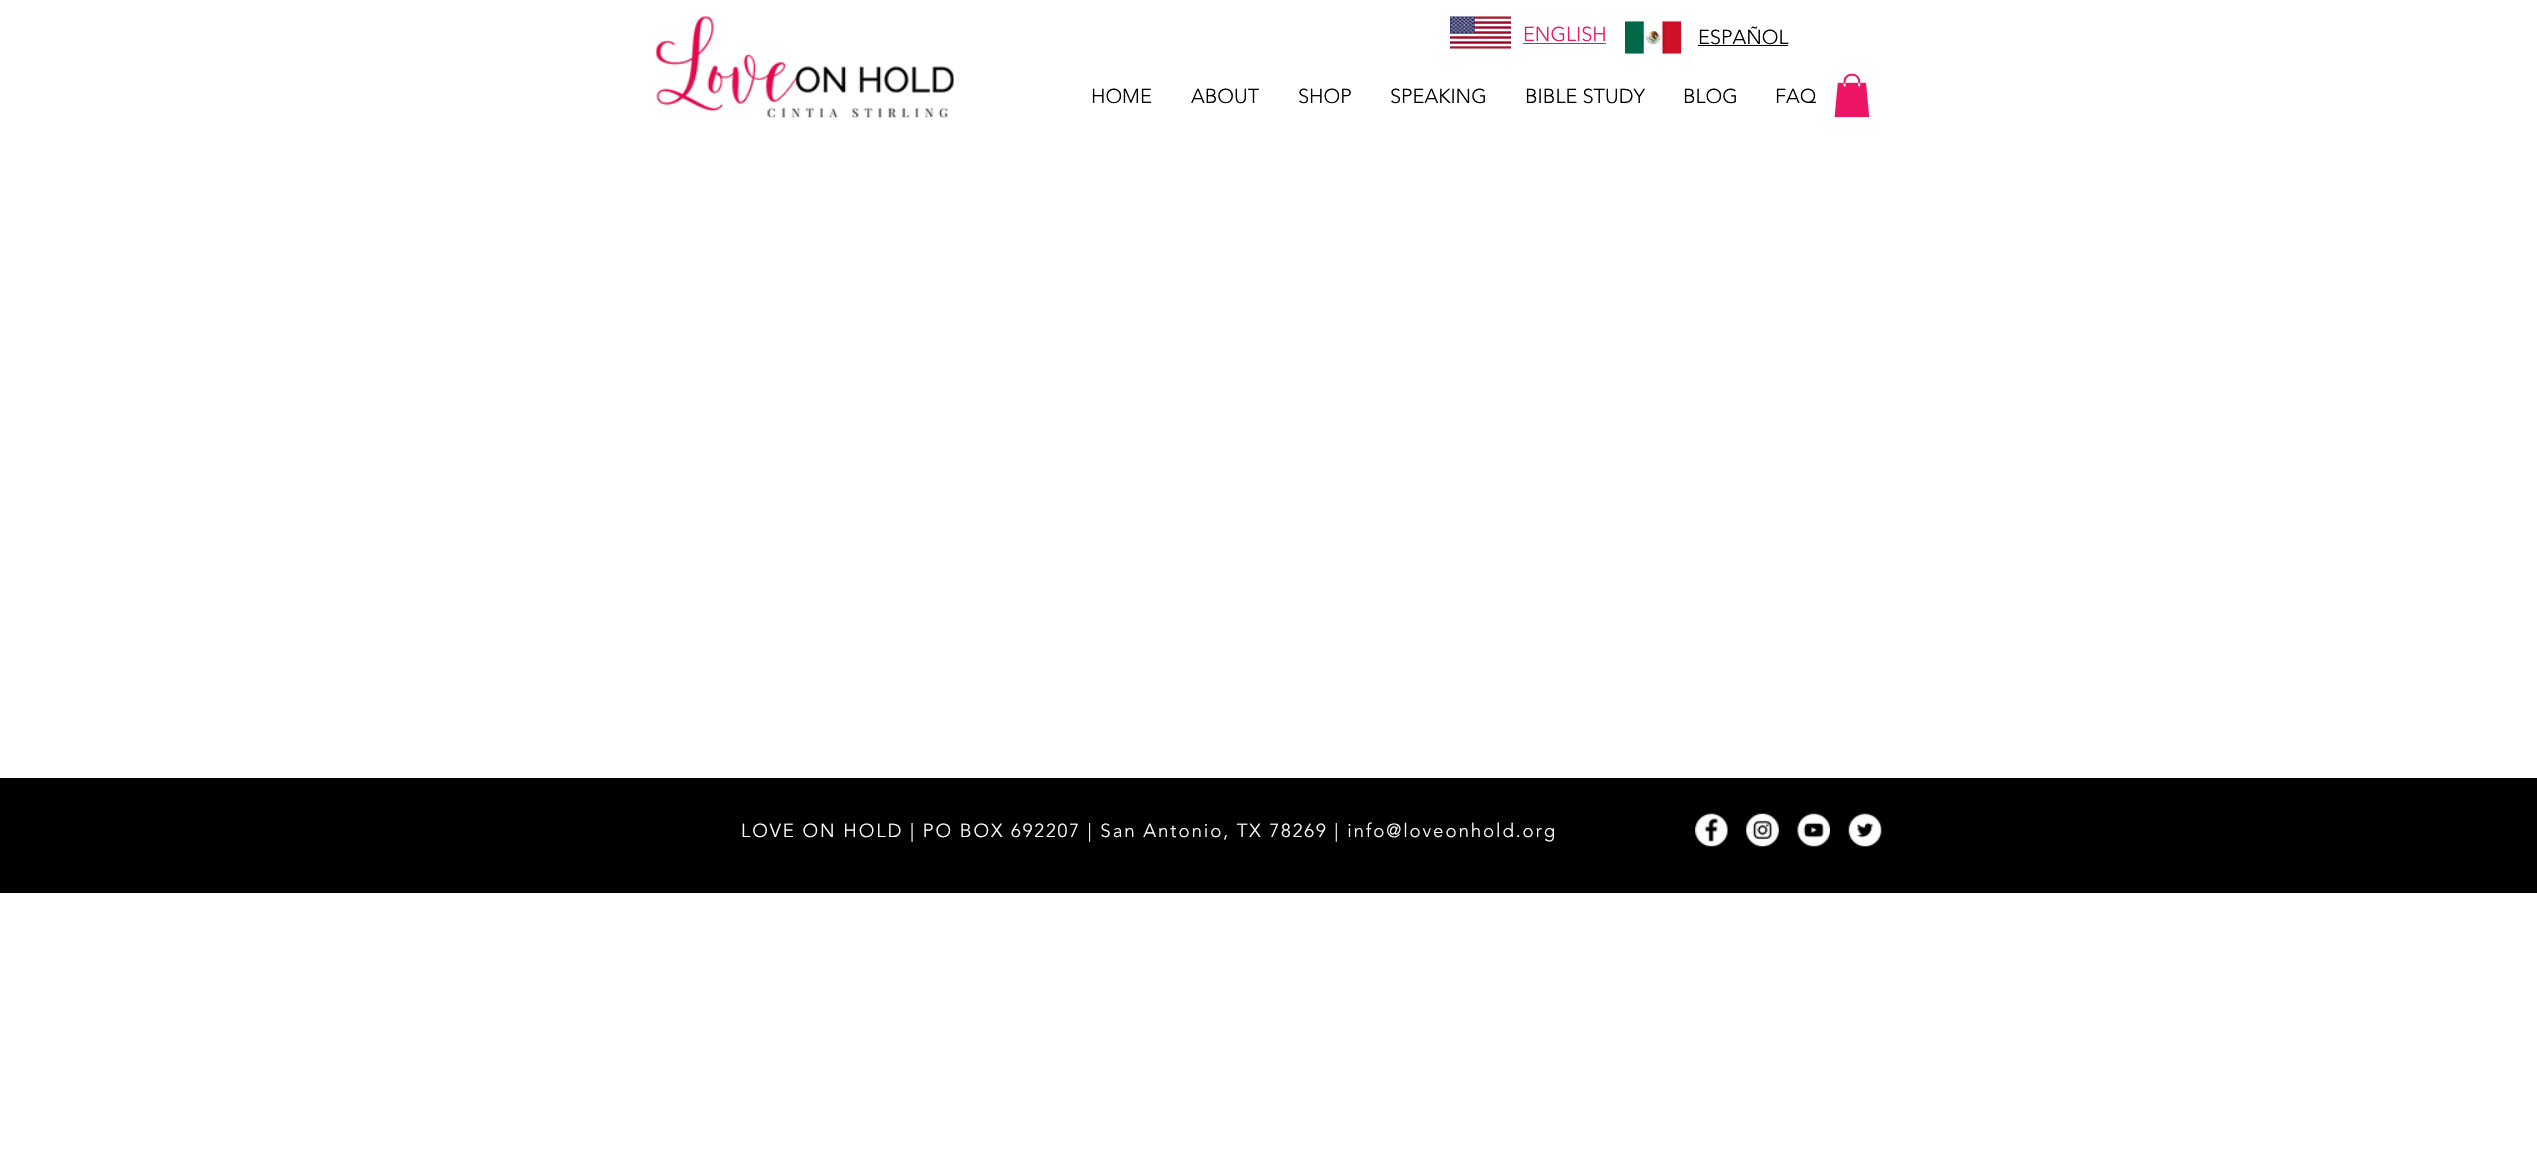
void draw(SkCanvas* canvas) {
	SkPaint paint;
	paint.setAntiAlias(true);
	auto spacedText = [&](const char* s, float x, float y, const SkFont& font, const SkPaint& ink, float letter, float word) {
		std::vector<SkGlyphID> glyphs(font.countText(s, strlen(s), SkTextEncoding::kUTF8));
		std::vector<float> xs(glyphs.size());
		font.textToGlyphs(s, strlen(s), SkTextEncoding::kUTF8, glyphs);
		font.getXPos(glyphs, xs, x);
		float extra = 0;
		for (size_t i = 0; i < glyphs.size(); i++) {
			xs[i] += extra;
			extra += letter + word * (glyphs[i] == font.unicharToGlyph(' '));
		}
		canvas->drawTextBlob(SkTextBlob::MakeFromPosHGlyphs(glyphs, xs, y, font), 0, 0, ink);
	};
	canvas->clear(0xffffffff);
	canvas->drawImageRect(SkImages::DeferredFromEncodedData(SkData::MakeFromFileName("img1.png")), SkRect::MakeXYWH(656, 16, 298, 102), SkSamplingOptions());
	canvas->drawImageRect(SkImages::DeferredFromEncodedData(SkData::MakeFromFileName("img2.png")), SkRect::MakeXYWH(1450, 16, 62, 33), SkSamplingOptions());
	SkFont f1(fontMgr->matchFamilyStyle("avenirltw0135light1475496", SkFontStyle(300, SkFontStyle::kNormal_Width, SkFontStyle::kUpright_Slant)), 20);
	f1.setSubpixel(true);
	paint.setColor(0xffed1566);
	canvas->drawString("ENGLISH", 1523, 41, f1, paint);
	canvas->drawRect(SkRect::MakeXYWH(1523, 43, 83, 1), paint);
	canvas->drawImageRect(SkImages::DeferredFromEncodedData(SkData::MakeFromFileName("img3.png")), SkRect::MakeXYWH(1625, 21, 57, 33), SkSamplingOptions());
	paint.setColor(0xff000000);
	canvas->drawString("ESPAÑOL", 1698, 44, f1, paint);
	canvas->drawRect(SkRect::MakeXYWH(1698, 45, 90, 1), paint);
	canvas->drawString("HOME", 1091, 103, f1, paint);
	canvas->drawString("ABOUT", 1191, 103, f1, paint);
	canvas->drawString("SHOP", 1298, 103, f1, paint);
	canvas->drawString("SPEAKING", 1390, 103, f1, paint);
	canvas->drawString("BIBLE STUDY", 1525, 103, f1, paint);
	canvas->drawString("BLOG", 1683, 103, f1, paint);
	canvas->drawString("FAQ", 1775, 103, f1, paint);
	canvas->drawImageRect(SkImages::DeferredFromEncodedData(SkData::MakeFromFileName("img4.png")), SkRect::MakeXYWH(1834, 73, 36, 45), SkSamplingOptions());
	canvas->drawRect(SkRect::MakeXYWH(0, 778, 2537, 115), paint);
	SkFont f2(fontMgr->matchFamilyStyle("avenirltw0135light1475496", SkFontStyle(300, SkFontStyle::kNormal_Width, SkFontStyle::kUpright_Slant)), 18.75);
	f2.setSubpixel(true);
	paint.setColor(0xffffffff);
	spacedText("LOVE ON HOLD | PO BOX 692207 | San Antonio, TX 78269 | info@loveonhold.org", 741, 837, f2, paint, 1.88, 0);
	canvas->drawImageRect(SkImages::DeferredFromEncodedData(SkData::MakeFromFileName("img5.png")), SkRect::MakeXYWH(1695, 813, 33, 34), SkSamplingOptions());
	canvas->drawImageRect(SkImages::DeferredFromEncodedData(SkData::MakeFromFileName("img6.png")), SkRect::MakeXYWH(1746, 813, 33, 34), SkSamplingOptions());
	canvas->drawImageRect(SkImages::DeferredFromEncodedData(SkData::MakeFromFileName("img7.png")), SkRect::MakeXYWH(1797, 813, 33, 34), SkSamplingOptions());
	canvas->drawImageRect(SkImages::DeferredFromEncodedData(SkData::MakeFromFileName("img8.png")), SkRect::MakeXYWH(1848, 813, 34, 34), SkSamplingOptions());
}
